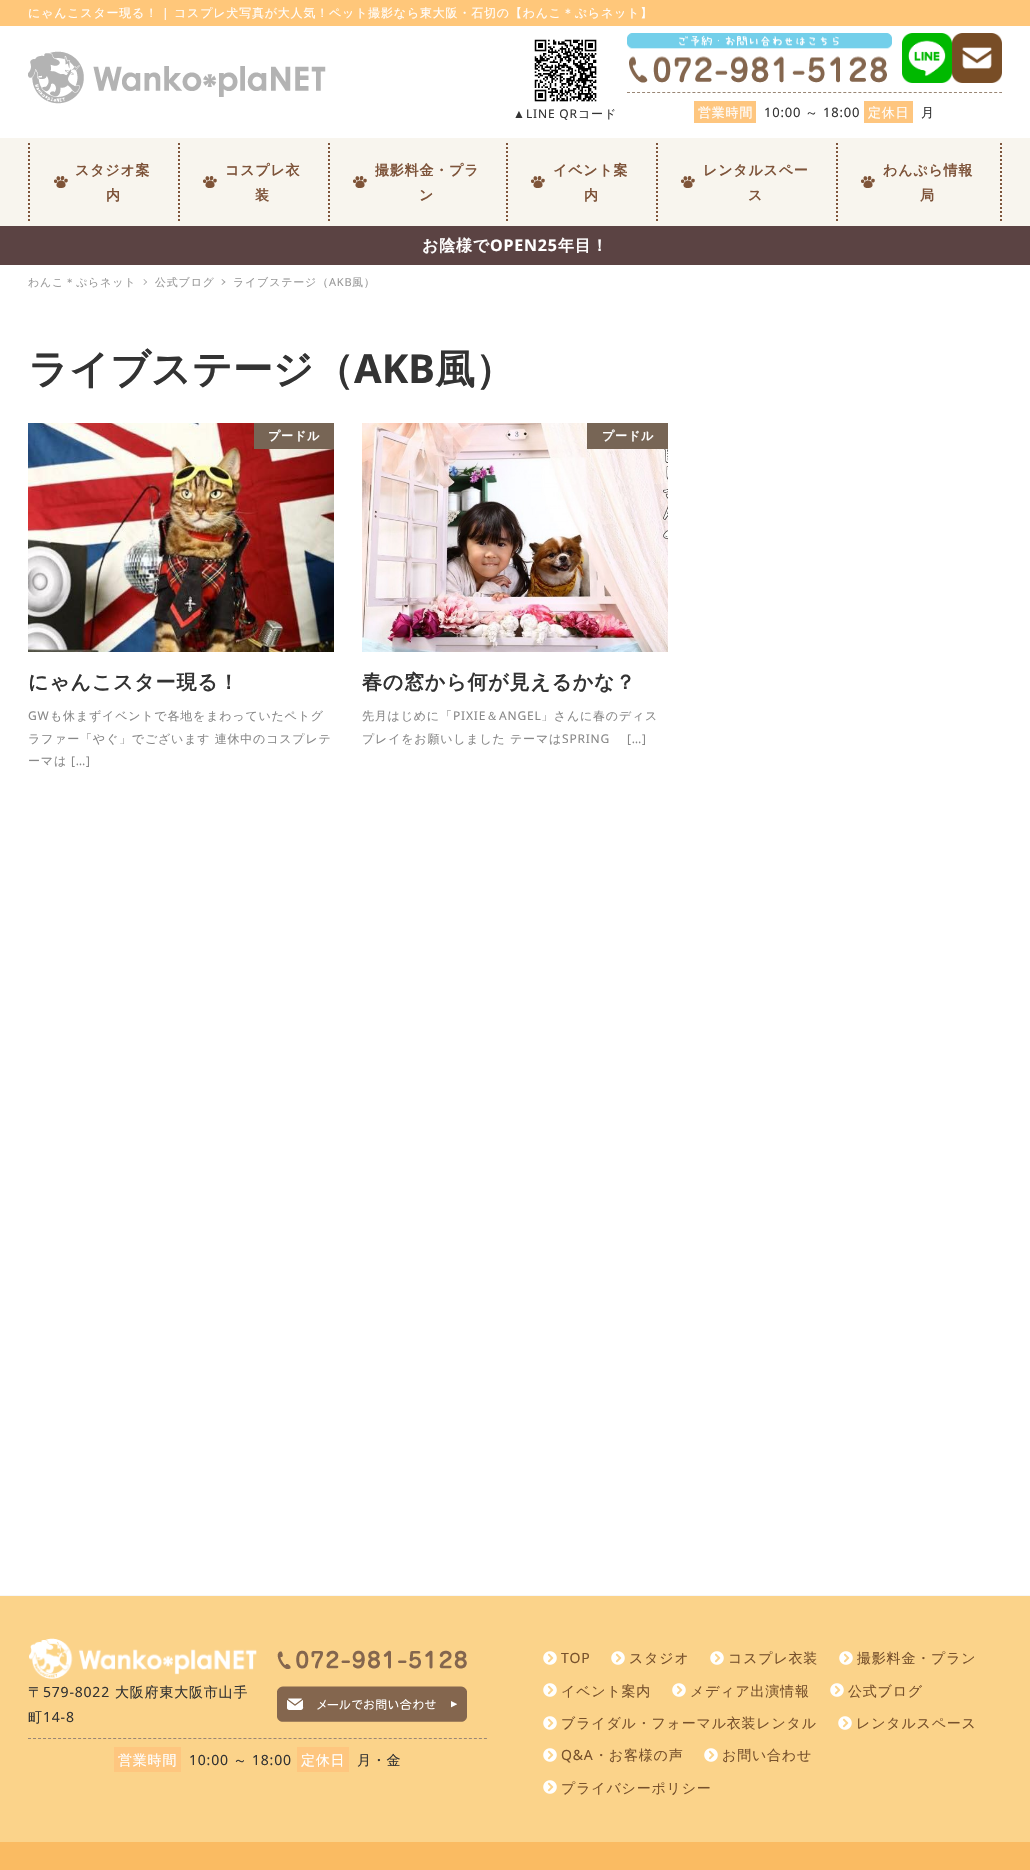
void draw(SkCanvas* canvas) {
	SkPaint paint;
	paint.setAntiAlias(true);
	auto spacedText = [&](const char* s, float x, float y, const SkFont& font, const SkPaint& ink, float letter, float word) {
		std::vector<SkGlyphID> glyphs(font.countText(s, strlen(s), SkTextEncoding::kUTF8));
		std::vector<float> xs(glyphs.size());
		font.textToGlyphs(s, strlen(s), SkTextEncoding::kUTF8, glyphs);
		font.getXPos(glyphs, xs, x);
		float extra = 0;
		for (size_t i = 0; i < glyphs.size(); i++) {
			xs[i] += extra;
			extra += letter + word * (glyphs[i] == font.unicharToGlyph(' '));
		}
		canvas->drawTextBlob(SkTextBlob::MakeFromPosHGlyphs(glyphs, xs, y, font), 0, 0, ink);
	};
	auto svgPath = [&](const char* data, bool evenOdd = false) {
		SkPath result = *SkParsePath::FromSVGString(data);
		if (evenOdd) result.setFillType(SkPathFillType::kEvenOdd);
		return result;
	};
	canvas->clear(0xffffffff);
	paint.setColor(0xffffc77a);
	canvas->drawRect(SkRect::MakeXYWH(0, 0, 1030, 26), paint);
	SkFont f1(fontMgr->matchFamilyStyle("WenQuanYi Zen Hei", SkFontStyle(500, SkFontStyle::kNormal_Width, SkFontStyle::kUpright_Slant)), 12);
	f1.setSubpixel(true);
	paint.setColor(0xffffffff);
	spacedText("にゃんこスター現る！", 28, 17, f1, paint, 0.8, 0);
	SkFont f2(fontMgr->matchFamilyStyle("Noto Sans", SkFontStyle::Normal()), 12);
	f2.setSubpixel(true);
	spacedText("|", 162, 17, f2, paint, 0.8, 0);
	spacedText("コスプレ犬写真が大人気！ペット撮影なら東大阪・石切の【わんこ＊ぷらネット】", 174, 17, f1, paint, 0.8, 0);
	canvas->drawImageRect(SkImages::DeferredFromEncodedData(SkData::MakeFromFileName("img1.png")), SkRect::MakeXYWH(28, 51, 298, 53), SkSamplingOptions());
	canvas->drawImageRect(SkImages::DeferredFromEncodedData(SkData::MakeFromFileName("img2.png")), SkRect::MakeXYWH(534, 39, 63, 63), SkSamplingOptions());
	SkFont f3(fontMgr->matchFamilyStyle("Liberation Sans", SkFontStyle::Normal()), 12);
	f3.setSubpixel(true);
	paint.setColor(0xff333333);
	spacedText("▲", 513, 118, f3, paint, 0.8, 0);
	spacedText("LINE QR", 526, 118, f2, paint, 0.8, 0);
	spacedText("コード", 578, 118, f1, paint, 0.8, 0);
	paint.setStroke(true);
	paint.setStrokeWidth(1);
	paint.setColor(0xff998675);
	paint.setPathEffect(SkDashPathEffect::Make({{3, 2.03f}}, 0));
	canvas->drawPath(svgPath("M627 92.5H1002"), paint);
	paint.setPathEffect(nullptr);
	canvas->drawImageRect(SkImages::DeferredFromEncodedData(SkData::MakeFromFileName("img3.png")), SkRect::MakeXYWH(627, 33, 265, 50), SkSamplingOptions());
	canvas->drawImageRect(SkImages::DeferredFromEncodedData(SkData::MakeFromFileName("img4.png")), SkRect::MakeXYWH(902, 33, 50, 50), SkSamplingOptions());
	canvas->drawImageRect(SkImages::DeferredFromEncodedData(SkData::MakeFromFileName("img5.png")), SkRect::MakeXYWH(952, 33, 50, 50), SkSamplingOptions());
	paint.setStroke(false);
	paint.setColor(0xfffec67f);
	canvas->drawRect(SkRect::MakeXYWH(694, 101, 62, 22), paint);
	SkFont f4(fontMgr->matchFamilyStyle("WenQuanYi Zen Hei", SkFontStyle(500, SkFontStyle::kNormal_Width, SkFontStyle::kUpright_Slant)), 13);
	f4.setSubpixel(true);
	paint.setColor(0xffffffff);
	spacedText("営業時間", 698, 117, f4, paint, 0.8, 0);
	SkFont f5(fontMgr->matchFamilyStyle("Noto Sans", SkFontStyle::Normal()), 13);
	f5.setSubpixel(true);
	paint.setColor(0xff333333);
	spacedText("10:00", 764, 117, f5, paint, 0.8, 0);
	spacedText("～", 805, 117, f4, paint, 0.8, 0);
	spacedText("18:00", 823, 117, f5, paint, 0.8, 0);
	paint.setColor(0xfffec67f);
	canvas->drawRect(SkRect::MakeXYWH(864, 101, 49, 22), paint);
	paint.setColor(0xffffffff);
	spacedText("定休日", 868, 117, f4, paint, 0.8, 0);
	paint.setColor(0xff333333);
	spacedText("月", 921, 117, f4, paint, 0.8, 0);
	paint.setColor(0xfff8f5ee);
	canvas->drawRect(SkRect::MakeXYWH(0, 138, 1030, 88), paint);
	paint.setStroke(true);
	paint.setStrokeWidth(2);
	paint.setColor(0xff7e543a);
	paint.setPathEffect(SkDashPathEffect::Make({{2, 2}}, 0));
	canvas->drawPath(svgPath("M29 143V221"), paint);
	paint.setPathEffect(nullptr);
	SkFont f6(fontMgr->matchFamilyStyle("WenQuanYi Zen Hei", SkFontStyle::Bold()), 14);
	f6.setSubpixel(true);
	paint.setStroke(false);
	spacedText("スタジオ案", 75, 175, f6, paint, 0.8, 0);
	canvas->drawImageRect(SkImages::DeferredFromEncodedData(SkData::MakeFromFileName("img6.png")), SkRect::MakeXYWH(54, 176, 14, 12), SkSamplingOptions());
	spacedText("内", 106, 200, f6, paint, 0.8, 0);
	paint.setStroke(true);
	paint.setPathEffect(SkDashPathEffect::Make({{2, 2}}, 0));
	canvas->drawPath(svgPath("M179 143V221"), paint);
	paint.setPathEffect(nullptr);
	paint.setStroke(false);
	spacedText("コスプレ衣", 225, 175, f6, paint, 0.8, 0);
	canvas->drawImageRect(SkImages::DeferredFromEncodedData(SkData::MakeFromFileName("img6.png")), SkRect::MakeXYWH(203, 176, 14, 12), SkSamplingOptions());
	spacedText("装", 255, 200, f6, paint, 0.8, 0);
	paint.setStroke(true);
	paint.setPathEffect(SkDashPathEffect::Make({{2, 2}}, 0));
	canvas->drawPath(svgPath("M329 143V221"), paint);
	paint.setPathEffect(nullptr);
	paint.setStroke(false);
	spacedText("撮影料金・プラ", 375, 175, f6, paint, 0.8, 0);
	canvas->drawImageRect(SkImages::DeferredFromEncodedData(SkData::MakeFromFileName("img6.png")), SkRect::MakeXYWH(353, 176, 14, 12), SkSamplingOptions());
	spacedText("ン", 419, 200, f6, paint, 0.8, 0);
	paint.setStroke(true);
	paint.setPathEffect(SkDashPathEffect::Make({{2, 2}}, 0));
	canvas->drawPath(svgPath("M507 143V221"), paint);
	paint.setPathEffect(nullptr);
	paint.setStroke(false);
	spacedText("イベント案", 553, 175, f6, paint, 0.8, 0);
	canvas->drawImageRect(SkImages::DeferredFromEncodedData(SkData::MakeFromFileName("img6.png")), SkRect::MakeXYWH(531, 176, 14, 12), SkSamplingOptions());
	spacedText("内", 584, 200, f6, paint, 0.8, 0);
	paint.setStroke(true);
	paint.setPathEffect(SkDashPathEffect::Make({{2, 2}}, 0));
	canvas->drawPath(svgPath("M657 143V221"), paint);
	paint.setPathEffect(nullptr);
	paint.setStroke(false);
	spacedText("レンタルスペー", 703, 175, f6, paint, 0.8, 0);
	canvas->drawImageRect(SkImages::DeferredFromEncodedData(SkData::MakeFromFileName("img6.png")), SkRect::MakeXYWH(681, 176, 14, 12), SkSamplingOptions());
	spacedText("ス", 748, 200, f6, paint, 0.8, 0);
	paint.setStroke(true);
	paint.setPathEffect(SkDashPathEffect::Make({{2, 2}}, 0));
	canvas->drawPath(svgPath("M1001 143V221"), paint);
	paint.setPathEffect(nullptr);
	paint.setPathEffect(SkDashPathEffect::Make({{2, 2}}, 0));
	canvas->drawPath(svgPath("M837 143V221"), paint);
	paint.setPathEffect(nullptr);
	paint.setStroke(false);
	spacedText("わんぷら情報", 883, 175, f6, paint, 0.8, 0);
	canvas->drawImageRect(SkImages::DeferredFromEncodedData(SkData::MakeFromFileName("img6.png")), SkRect::MakeXYWH(861, 176, 14, 12), SkSamplingOptions());
	spacedText("局", 920, 200, f6, paint, 0.8, 0);
	paint.setColor(0xff5b4343);
	canvas->drawRect(SkRect::MakeXYWH(0, 226, 1030, 39), paint);
	SkFont f7(fontMgr->matchFamilyStyle("WenQuanYi Zen Hei", SkFontStyle::Bold()), 16);
	f7.setSubpixel(true);
	paint.setColor(0xffffffff);
	spacedText("お陰様で", 422, 251, f7, paint, 0.8, 0);
	SkFont f8(fontMgr->matchFamilyStyle("Noto Sans", SkFontStyle::Bold()), 16);
	f8.setSubpixel(true);
	spacedText("OPEN25", 490, 251, f8, paint, 0.8, 0);
	spacedText("年目！", 558, 251, f7, paint, 0.8, 0);
	SkFont f9(fontMgr->matchFamilyStyle("WenQuanYi Zen Hei", SkFontStyle(500, SkFontStyle::kNormal_Width, SkFontStyle::kUpright_Slant)), 11);
	f9.setSubpixel(true);
	paint.setColor(0xff999999);
	spacedText("わんこ＊ぷらネット", 28, 286, f9, paint, 0.8, 0);
	canvas->drawPath(svgPath("M144 279L147 282L146.5 282.5L143.5 279.5Z"), paint);
	canvas->drawPath(svgPath("M146.5 281.5L147 282L144 285L143.5 284.5Z"), paint);
	spacedText("公式ブログ", 155, 286, f9, paint, 0.8, 0);
	canvas->drawPath(svgPath("M222 279L225.5 282L224.5 282.5L221.5 279.5Z"), paint);
	canvas->drawPath(svgPath("M224.5 281.5L225.5 282L222 285L221.5 284.5Z"), paint);
	spacedText("ライブステージ（", 233, 286, f9, paint, 0.8, 0);
	SkFont f10(fontMgr->matchFamilyStyle("Noto Sans", SkFontStyle::Normal()), 11);
	f10.setSubpixel(true);
	spacedText("AKB", 329, 286, f10, paint, 0.8, 0);
	spacedText("風）", 352, 286, f9, paint, 0.8, 0);
	SkFont f11(fontMgr->matchFamilyStyle("WenQuanYi Zen Hei", SkFontStyle::Bold()), 40);
	f11.setSubpixel(true);
	paint.setColor(0xff333333);
	canvas->drawString("ライブステージ（", 28, 383, f11, paint);
	SkFont f12(fontMgr->matchFamilyStyle("Noto Sans", SkFontStyle::Bold()), 40);
	f12.setSubpixel(true);
	canvas->drawString("AKB", 354, 383, f12, paint);
	canvas->drawString("風）", 435, 383, f11, paint);
	canvas->drawImageRect(SkImages::DeferredFromEncodedData(SkData::MakeFromFileName("img7.png")), SkRect::MakeXYWH(28, 423, 306, 229), SkSamplingOptions());
	paint.setColor(0xff776555);
	canvas->drawRect(SkRect::MakeXYWH(254, 423, 80, 26), paint);
	SkFont f13(fontMgr->matchFamilyStyle("WenQuanYi Zen Hei", SkFontStyle::Bold()), 12);
	f13.setSubpixel(true);
	paint.setColor(0xffffffff);
	spacedText("プードル", 268, 440, f13, paint, 0.8, 0);
	SkFont f14(fontMgr->matchFamilyStyle("WenQuanYi Zen Hei", SkFontStyle::Bold()), 20);
	f14.setSubpixel(true);
	paint.setColor(0xff333333);
	spacedText("にゃんこスター現る！", 28, 689, f14, paint, 0.8, 0);
	paint.setColor(0xff888888);
	spacedText("GW", 28, 720, f2, paint, 0.8, 0);
	spacedText("も休まずイベントで各地をまわっていたペトグ", 50, 720, f1, paint, 0.8, 0);
	spacedText("ラファー「やぐ」でございます 連休中のコスプレテ", 28, 743, f1, paint, 0.8, 0);
	spacedText("ーマは", 28, 765, f1, paint, 0.8, 0);
	spacedText("[…]", 71, 765, f2, paint, 0.8, 0);
	canvas->drawImageRect(SkImages::DeferredFromEncodedData(SkData::MakeFromFileName("img8.png")), SkRect::MakeXYWH(362, 423, 306, 229), SkSamplingOptions());
	paint.setColor(0xff776555);
	canvas->drawRect(SkRect::MakeXYWH(587, 423, 81, 26), paint);
	paint.setColor(0xffffffff);
	spacedText("プードル", 602, 440, f13, paint, 0.8, 0);
	paint.setColor(0xff333333);
	spacedText("春の窓から何が見えるかな？", 362, 689, f14, paint, 0.8, 0);
	paint.setColor(0xff888888);
	spacedText("先月はじめに「", 362, 720, f1, paint, 0.8, 0);
	spacedText("PIXIE", 453, 720, f2, paint, 0.8, 0);
	spacedText("＆", 486, 720, f1, paint, 0.8, 0);
	spacedText("ANGEL", 499, 720, f2, paint, 0.8, 0);
	spacedText("」さんに春のディス", 541, 720, f1, paint, 0.8, 0);
	spacedText("プレイをお願いしました テーマは", 362, 743, f1, paint, 0.8, 0);
	spacedText("SPRING", 562, 743, f2, paint, 0.8, 0);
	spacedText("[…]", 627, 743, f2, paint, 0.8, 0);
	paint.setColor(0xfffbd38a);
	canvas->drawRect(SkRect::MakeXYWH(0, 1596, 1030, 246), paint);
	paint.setColor(0xfff7f7f7);
	canvas->drawRect(SkRect::MakeXYWH(0, 1595, 1030, 1), paint);
	paint.setStroke(true);
	paint.setStrokeWidth(1);
	paint.setColor(0xff998675);
	paint.setPathEffect(SkDashPathEffect::Make({{3, 2.01f}}, 0));
	canvas->drawPath(svgPath("M28 1738.5H487"), paint);
	paint.setPathEffect(nullptr);
	canvas->drawImageRect(SkImages::DeferredFromEncodedData(SkData::MakeFromFileName("img9.png")), SkRect::MakeXYWH(29, 1638, 228, 41), SkSamplingOptions());
	SkFont f15(fontMgr->matchFamilyStyle("WenQuanYi Zen Hei", SkFontStyle(500, SkFontStyle::kNormal_Width, SkFontStyle::kUpright_Slant)), 14);
	f15.setSubpixel(true);
	paint.setStroke(false);
	paint.setColor(0xff333333);
	spacedText("〒", 28, 1697, f15, paint, 0.8, 0);
	SkFont f16(fontMgr->matchFamilyStyle("Noto Sans", SkFontStyle::Normal()), 14);
	f16.setSubpixel(true);
	spacedText("579-8022", 43, 1697, f16, paint, 0.8, 0);
	spacedText("大阪府東大阪市山手", 115, 1697, f15, paint, 0.8, 0);
	spacedText("町", 28, 1722, f15, paint, 0.8, 0);
	spacedText("14-8", 43, 1722, f16, paint, 0.8, 0);
	canvas->drawImageRect(SkImages::DeferredFromEncodedData(SkData::MakeFromFileName("img10.png")), SkRect::MakeXYWH(277, 1650, 190, 19), SkSamplingOptions());
	canvas->drawImageRect(SkImages::DeferredFromEncodedData(SkData::MakeFromFileName("img11.png")), SkRect::MakeXYWH(277, 1686, 190, 36), SkSamplingOptions());
	paint.setColor(0xfffec67f);
	canvas->drawRect(SkRect::MakeXYWH(114, 1747, 67, 25), paint);
	paint.setColor(0xffffffff);
	spacedText("営業時間", 118, 1765, f15, paint, 0.8, 0);
	paint.setColor(0xff333333);
	spacedText("10:00", 189, 1765, f16, paint, 0.8, 0);
	spacedText("～", 233, 1765, f15, paint, 0.8, 0);
	spacedText("18:00", 252, 1765, f16, paint, 0.8, 0);
	paint.setColor(0xfffec67f);
	canvas->drawRect(SkRect::MakeXYWH(297, 1747, 52, 25), paint);
	paint.setColor(0xffffffff);
	spacedText("定休日", 301, 1765, f15, paint, 0.8, 0);
	paint.setColor(0xff333333);
	spacedText("月・金", 357, 1765, f15, paint, 0.8, 0);
	canvas->drawImageRect(SkImages::DeferredFromEncodedData(SkData::MakeFromFileName("img12.png")), SkRect::MakeXYWH(543, 1651, 14, 14), SkSamplingOptions());
	paint.setColor(0xff77512c);
	spacedText("TOP", 561, 1663, f16, paint, 0.8, 0);
	canvas->drawImageRect(SkImages::DeferredFromEncodedData(SkData::MakeFromFileName("img12.png")), SkRect::MakeXYWH(611, 1651, 14, 14), SkSamplingOptions());
	spacedText("スタジオ", 629, 1663, f15, paint, 0.8, 0);
	canvas->drawImageRect(SkImages::DeferredFromEncodedData(SkData::MakeFromFileName("img12.png")), SkRect::MakeXYWH(710, 1651, 14, 14), SkSamplingOptions());
	spacedText("コスプレ衣装", 728, 1663, f15, paint, 0.8, 0);
	canvas->drawImageRect(SkImages::DeferredFromEncodedData(SkData::MakeFromFileName("img12.png")), SkRect::MakeXYWH(839, 1651, 14, 14), SkSamplingOptions());
	spacedText("撮影料金・プラン", 857, 1663, f15, paint, 0.8, 0);
	canvas->drawImageRect(SkImages::DeferredFromEncodedData(SkData::MakeFromFileName("img12.png")), SkRect::MakeXYWH(543, 1683, 14, 14), SkSamplingOptions());
	spacedText("イベント案内", 561, 1696, f15, paint, 0.8, 0);
	canvas->drawImageRect(SkImages::DeferredFromEncodedData(SkData::MakeFromFileName("img12.png")), SkRect::MakeXYWH(672, 1683, 14, 14), SkSamplingOptions());
	spacedText("メディア出演情報", 690, 1696, f15, paint, 0.8, 0);
	canvas->drawImageRect(SkImages::DeferredFromEncodedData(SkData::MakeFromFileName("img12.png")), SkRect::MakeXYWH(830, 1683, 14, 14), SkSamplingOptions());
	spacedText("公式ブログ", 848, 1696, f15, paint, 0.8, 0);
	canvas->drawImageRect(SkImages::DeferredFromEncodedData(SkData::MakeFromFileName("img12.png")), SkRect::MakeXYWH(543, 1716, 14, 14), SkSamplingOptions());
	spacedText("ブライダル・フォーマル衣装レンタル", 561, 1728, f15, paint, 0.8, 0);
	canvas->drawImageRect(SkImages::DeferredFromEncodedData(SkData::MakeFromFileName("img12.png")), SkRect::MakeXYWH(838, 1716, 14, 14), SkSamplingOptions());
	spacedText("レンタルスペース", 856, 1728, f15, paint, 0.8, 0);
	canvas->drawImageRect(SkImages::DeferredFromEncodedData(SkData::MakeFromFileName("img12.png")), SkRect::MakeXYWH(543, 1748, 14, 14), SkSamplingOptions());
	spacedText("Q&A", 561, 1760, f16, paint, 0.8, 0);
	spacedText("・お客様の声", 594, 1760, f15, paint, 0.8, 0);
	canvas->drawImageRect(SkImages::DeferredFromEncodedData(SkData::MakeFromFileName("img12.png")), SkRect::MakeXYWH(704, 1748, 14, 14), SkSamplingOptions());
	spacedText("お問い合わせ", 722, 1760, f15, paint, 0.8, 0);
	canvas->drawImageRect(SkImages::DeferredFromEncodedData(SkData::MakeFromFileName("img12.png")), SkRect::MakeXYWH(543, 1780, 14, 14), SkSamplingOptions());
	spacedText("プライバシーポリシー", 561, 1793, f15, paint, 0.8, 0);
	paint.setColor(0xfffabb62);
	canvas->drawRect(SkRect::MakeXYWH(0, 1842, 1030, 28), paint);
}
